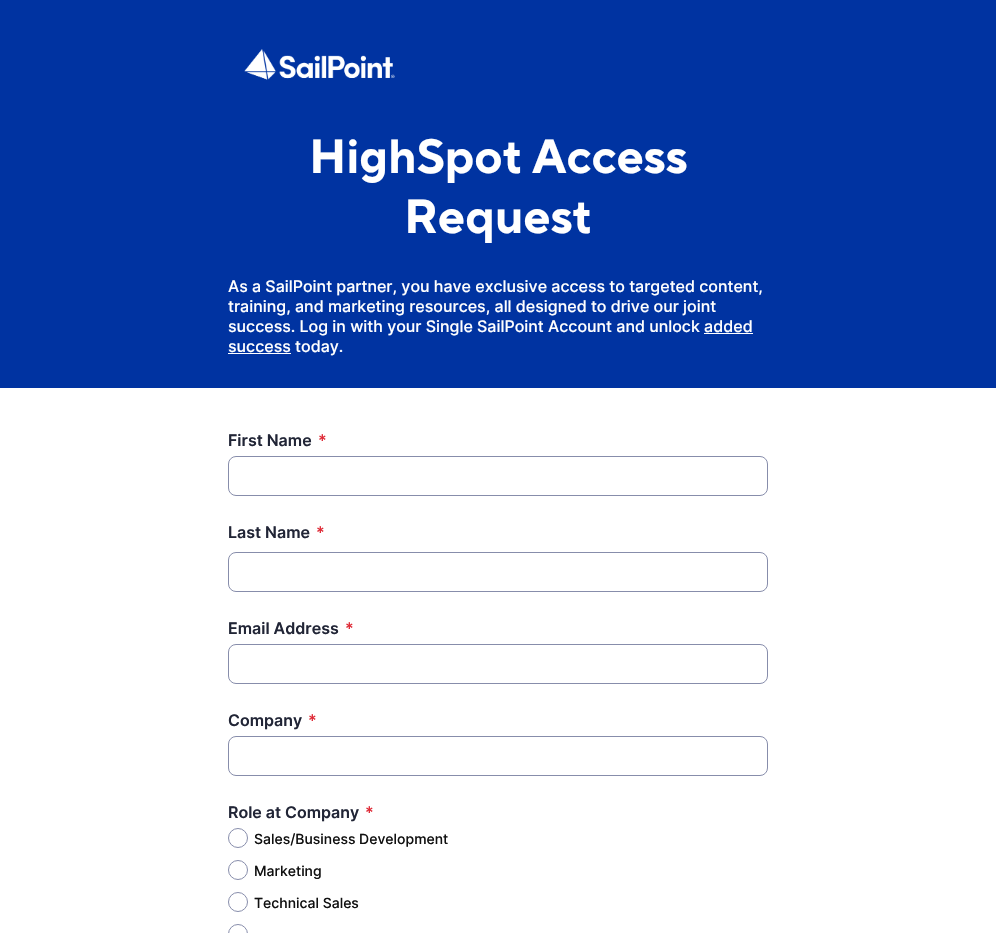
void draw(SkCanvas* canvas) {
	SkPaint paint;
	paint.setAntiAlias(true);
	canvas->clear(0xffffffff);
	paint.setColor(0xff0033a1);
	canvas->drawRect(SkRect::MakeXYWH(0, 0, 996, 388), paint);
	canvas->drawImageRect(SkImages::DeferredFromEncodedData(SkData::MakeFromFileName("img1.png")), SkRect::MakeXYWH(244, 49, 151, 31), SkSamplingOptions());
	SkFont f1(fontMgr->matchFamilyStyle("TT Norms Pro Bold", SkFontStyle::Bold()), 48);
	f1.setSubpixel(true);
	paint.setColor(0xffffffff);
	canvas->drawString("HighSpot Access", 309, 173, f1, paint);
	canvas->drawString("Request", 404, 233, f1, paint);
	SkFont f2(fontMgr->matchFamilyStyle("Inter", SkFontStyle(500, SkFontStyle::kNormal_Width, SkFontStyle::kUpright_Slant)), 16);
	f2.setSubpixel(true);
	canvas->drawString("As a SailPoint partner, you have exclusive access to targeted content,", 228, 292, f2, paint);
	canvas->drawString("training, and marketing resources, all designed to drive our joint", 228, 312, f2, paint);
	canvas->drawString("success. Log in with your Single SailPoint Account and unlock added", 228, 332, f2, paint);
	canvas->drawRect(SkRect::MakeXYWH(228, 353, 63, 1), paint);
	canvas->drawString("success today.", 228, 352, f2, paint);
	canvas->drawRect(SkRect::MakeXYWH(704, 333, 49, 1), paint);
	SkFont f3(fontMgr->matchFamilyStyle("Inter", SkFontStyle(600, SkFontStyle::kNormal_Width, SkFontStyle::kUpright_Slant)), 16);
	f3.setSubpixel(true);
	paint.setColor(0xff212536);
	canvas->drawString("First Name", 228, 446, f3, paint);
	paint.setColor(0xffdf2a36);
	canvas->drawString("*", 318, 446, f3, paint);
	paint.setStroke(true);
	paint.setStrokeWidth(1);
	paint.setColor(0xff878dab);
	canvas->drawRoundRect(SkRect::MakeXYWH(228.5, 456.5, 539, 39), 7.5, 7.5, paint);
	paint.setStroke(false);
	paint.setColor(0xff212536);
	canvas->drawString("Last Name", 228, 538, f3, paint);
	paint.setColor(0xffdf2a36);
	canvas->drawString("*", 316, 538, f3, paint);
	paint.setStroke(true);
	paint.setColor(0xff878dab);
	canvas->drawRoundRect(SkRect::MakeXYWH(228.5, 552.5, 539, 39), 7.5, 7.5, paint);
	paint.setStroke(false);
	paint.setColor(0xff212536);
	canvas->drawString("Email Address", 228, 634, f3, paint);
	paint.setColor(0xffdf2a36);
	canvas->drawString("*", 345, 634, f3, paint);
	paint.setStroke(true);
	paint.setColor(0xff878dab);
	canvas->drawRoundRect(SkRect::MakeXYWH(228.5, 644.5, 539, 39), 7.5, 7.5, paint);
	paint.setStroke(false);
	paint.setColor(0xff212536);
	canvas->drawString("Company", 228, 726, f3, paint);
	paint.setColor(0xffdf2a36);
	canvas->drawString("*", 308, 726, f3, paint);
	paint.setStroke(true);
	paint.setColor(0xff878dab);
	canvas->drawRoundRect(SkRect::MakeXYWH(228.5, 736.5, 539, 39), 7.5, 7.5, paint);
	paint.setStroke(false);
	paint.setColor(0xff212536);
	canvas->drawString("Role at Company", 228, 818, f3, paint);
	paint.setColor(0xffdf2a36);
	canvas->drawString("*", 365, 818, f3, paint);
	paint.setStroke(true);
	paint.setColor(0xff878dab);
	canvas->drawCircle(238, 838, 9.5, paint);
	SkFont f4(fontMgr->matchFamilyStyle("Inter", SkFontStyle(500, SkFontStyle::kNormal_Width, SkFontStyle::kUpright_Slant)), 14);
	f4.setSubpixel(true);
	paint.setStroke(false);
	paint.setColor(0xff111111);
	canvas->drawString("Sales/Business Development", 254, 844, f4, paint);
	paint.setStroke(true);
	paint.setColor(0xff878dab);
	canvas->drawCircle(238, 870, 9.5, paint);
	paint.setStroke(false);
	paint.setColor(0xff111111);
	canvas->drawString("Marketing", 254, 876, f4, paint);
	paint.setStroke(true);
	paint.setColor(0xff878dab);
	canvas->drawCircle(238, 902, 9.5, paint);
	paint.setStroke(false);
	paint.setColor(0xff111111);
	canvas->drawString("Technical Sales", 254, 908, f4, paint);
	paint.setStroke(true);
	paint.setColor(0xff878dab);
	canvas->drawCircle(238, 934, 9.5, paint);
}
